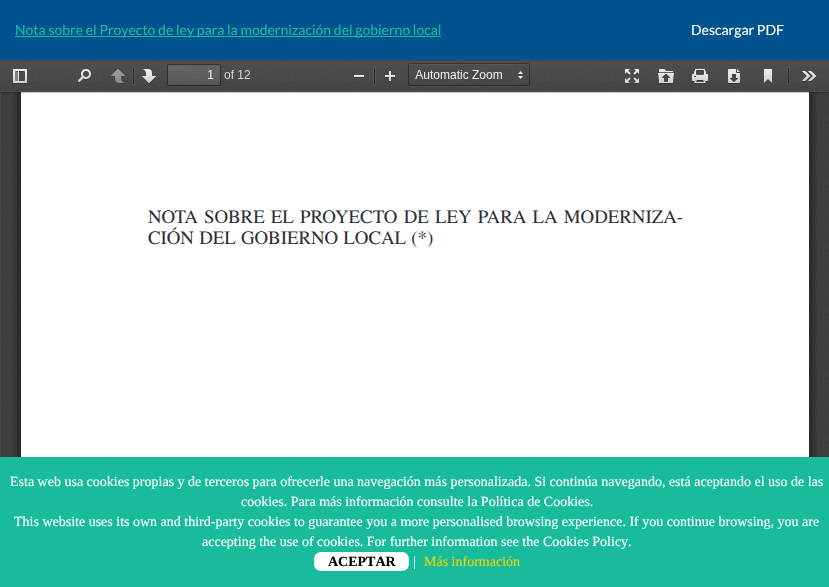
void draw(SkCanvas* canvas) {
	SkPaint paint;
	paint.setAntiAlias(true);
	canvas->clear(0xffffffff);
	paint.setColor(0xff01538f);
	canvas->drawRect(SkRect::MakeXYWH(0, 0, 829, 60), paint);
	paint.setColor(0xff18bc9c);
	canvas->drawRect(SkRect::MakeXYWH(15, 36, 426, 1), paint);
	SkFont f1(fontMgr->matchFamilyStyle("Lato", SkFontStyle::Normal()), 14);
	f1.setSubpixel(true);
	canvas->drawString("Nota sobre el Proyecto de ley para la modernización del gobierno local", 15, 35, f1, paint);
	paint.setColor(0xffffffff);
	canvas->drawString("Descargar PDF", 691, 35, f1, paint);
	canvas->drawImageRect(SkImages::DeferredFromEncodedData(SkData::MakeFromFileName("img1.png")), SkRect::MakeXYWH(0, 60, 829, 397), SkSamplingOptions());
	paint.setColor(0xff18bc9c);
	canvas->drawRect(SkRect::MakeXYWH(0, 457, 829, 130), paint);
	SkFont f2(fontMgr->matchFamilyStyle("Liberation Serif", SkFontStyle::Normal()), 14);
	f2.setSubpixel(true);
	paint.setColor(0xffffffff);
	canvas->drawString("Esta web usa cookies propias y de terceros para ofrecerle una navegación más personalizada. Si continúa navegando, está aceptando el uso de las", 10, 486, f2, paint);
	canvas->drawString("cookies. Para más información consulte la Política de Cookies.", 241, 506, f2, paint);
	canvas->drawString("This website uses its own and third-party cookies to guarantee you a more personalised browsing experience. If you continue browsing, you are", 14, 526, f2, paint);
	canvas->drawString("accepting the use of cookies. For further information see the Cookies Policy.", 202, 546, f2, paint);
	canvas->drawRoundRect(SkRect::MakeXYWH(314, 552, 95, 19), 7, 7, paint);
	SkFont f3(fontMgr->matchFamilyStyle("Liberation Serif", SkFontStyle::Bold()), 14);
	f3.setSubpixel(true);
	paint.setColor(0xff000000);
	canvas->drawString("ACEPTAR", 328, 566, f3, paint);
	paint.setColor(0xffffffff);
	canvas->drawString("|", 413, 566, f2, paint);
	paint.setColor(0xfff1d600);
	canvas->drawString("Más información", 424, 566, f2, paint);
}
